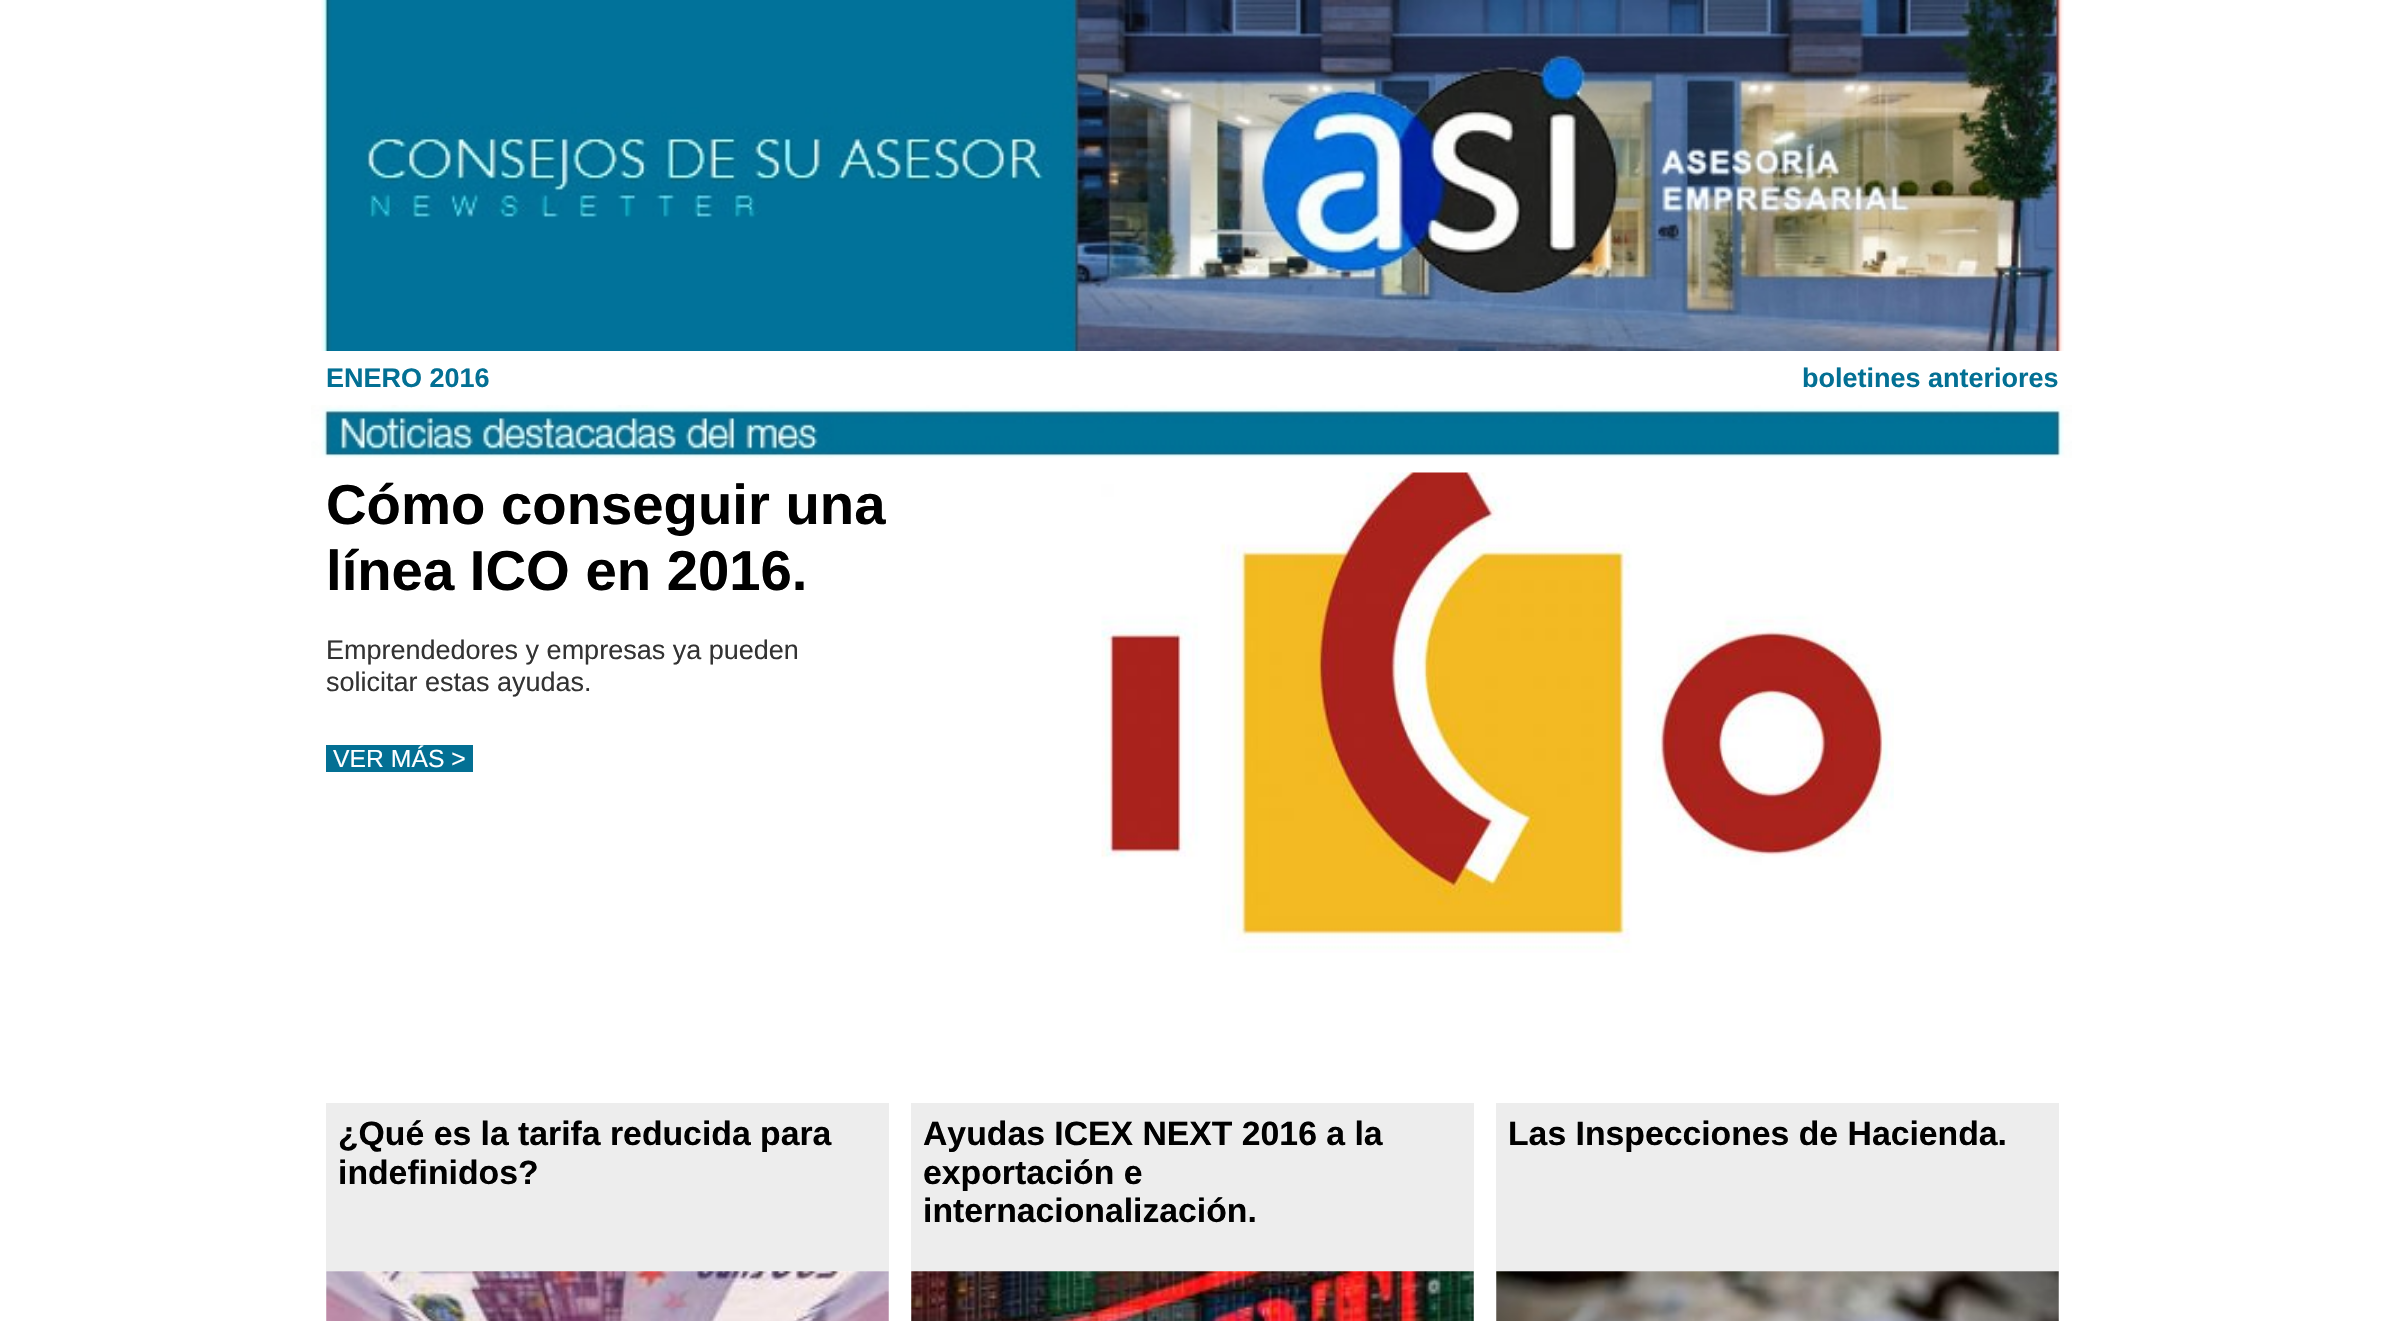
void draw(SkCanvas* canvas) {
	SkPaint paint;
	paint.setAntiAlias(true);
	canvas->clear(0xffffffff);
	canvas->drawImageRect(SkImages::DeferredFromEncodedData(SkData::MakeFromFileName("img1.png")), SkRect::MakeXYWH(321, 0, 1743, 351), SkSamplingOptions());
	SkFont f1(fontMgr->matchFamilyStyle("Liberation Sans", SkFontStyle::Bold()), 27);
	f1.setSubpixel(true);
	paint.setColor(0xff037094);
	canvas->drawString("ENERO 2016", 326, 387, f1, paint);
	canvas->drawString("boletines anteriores", 1802, 387, f1, paint);
	canvas->drawImageRect(SkImages::DeferredFromEncodedData(SkData::MakeFromFileName("img2.png")), SkRect::MakeXYWH(311, 405, 1761, 53), SkSamplingOptions());
	SkFont f2(fontMgr->matchFamilyStyle("Liberation Sans", SkFontStyle::Bold()), 56.25);
	f2.setSubpixel(true);
	paint.setColor(0xff000000);
	canvas->drawString("Cómo conseguir una", 326, 524, f2, paint);
	canvas->drawString("línea ICO en 2016.", 326, 590, f2, paint);
	SkFont f3(fontMgr->matchFamilyStyle("Liberation Sans", SkFontStyle::Normal()), 27);
	f3.setSubpixel(true);
	paint.setColor(0xff333333);
	canvas->drawString("Emprendedores y empresas ya pueden", 326, 659, f3, paint);
	canvas->drawString("solicitar estas ayudas.", 326, 691, f3, paint);
	paint.setColor(0xff037094);
	canvas->drawRect(SkRect::MakeXYWH(326, 745, 147, 27), paint);
	SkFont f4(fontMgr->matchFamilyStyle("Liberation Sans", SkFontStyle::Normal()), 24.75);
	f4.setSubpixel(true);
	paint.setColor(0xffffffff);
	canvas->drawString("VER MÁS >", 333, 767, f4, paint);
	canvas->drawImageRect(SkImages::DeferredFromEncodedData(SkData::MakeFromFileName("img3.png")), SkRect::MakeXYWH(1101, 472, 793, 481), SkSamplingOptions());
	paint.setColor(0xffededed);
	canvas->drawRect(SkRect::MakeXYWH(326, 1103, 563, 168), paint);
	SkFont f5(fontMgr->matchFamilyStyle("Liberation Sans", SkFontStyle::Bold()), 33.75);
	f5.setSubpixel(true);
	paint.setColor(0xff000000);
	canvas->drawString("¿Qué es la tarifa reducida para", 338, 1145, f5, paint);
	canvas->drawString("indefinidos?", 338, 1184, f5, paint);
	canvas->drawImageRect(SkImages::DeferredFromEncodedData(SkData::MakeFromFileName("img4.png")), SkRect::MakeXYWH(326, 1271, 563, 50), SkSamplingOptions());
	paint.setColor(0xffededed);
	canvas->drawRect(SkRect::MakeXYWH(911, 1103, 563, 168), paint);
	paint.setColor(0xff000000);
	canvas->drawString("Ayudas ICEX NEXT 2016 a la", 923, 1145, f5, paint);
	canvas->drawString("exportación e", 923, 1184, f5, paint);
	canvas->drawString("internacionalización.", 923, 1222, f5, paint);
	canvas->drawImageRect(SkImages::DeferredFromEncodedData(SkData::MakeFromFileName("img5.png")), SkRect::MakeXYWH(911, 1271, 563, 50), SkSamplingOptions());
	paint.setColor(0xffededed);
	canvas->drawRect(SkRect::MakeXYWH(1496, 1103, 563, 168), paint);
	paint.setColor(0xff000000);
	canvas->drawString("Las Inspecciones de Hacienda.", 1508, 1145, f5, paint);
	canvas->drawImageRect(SkImages::DeferredFromEncodedData(SkData::MakeFromFileName("img6.png")), SkRect::MakeXYWH(1496, 1271, 563, 50), SkSamplingOptions());
}
